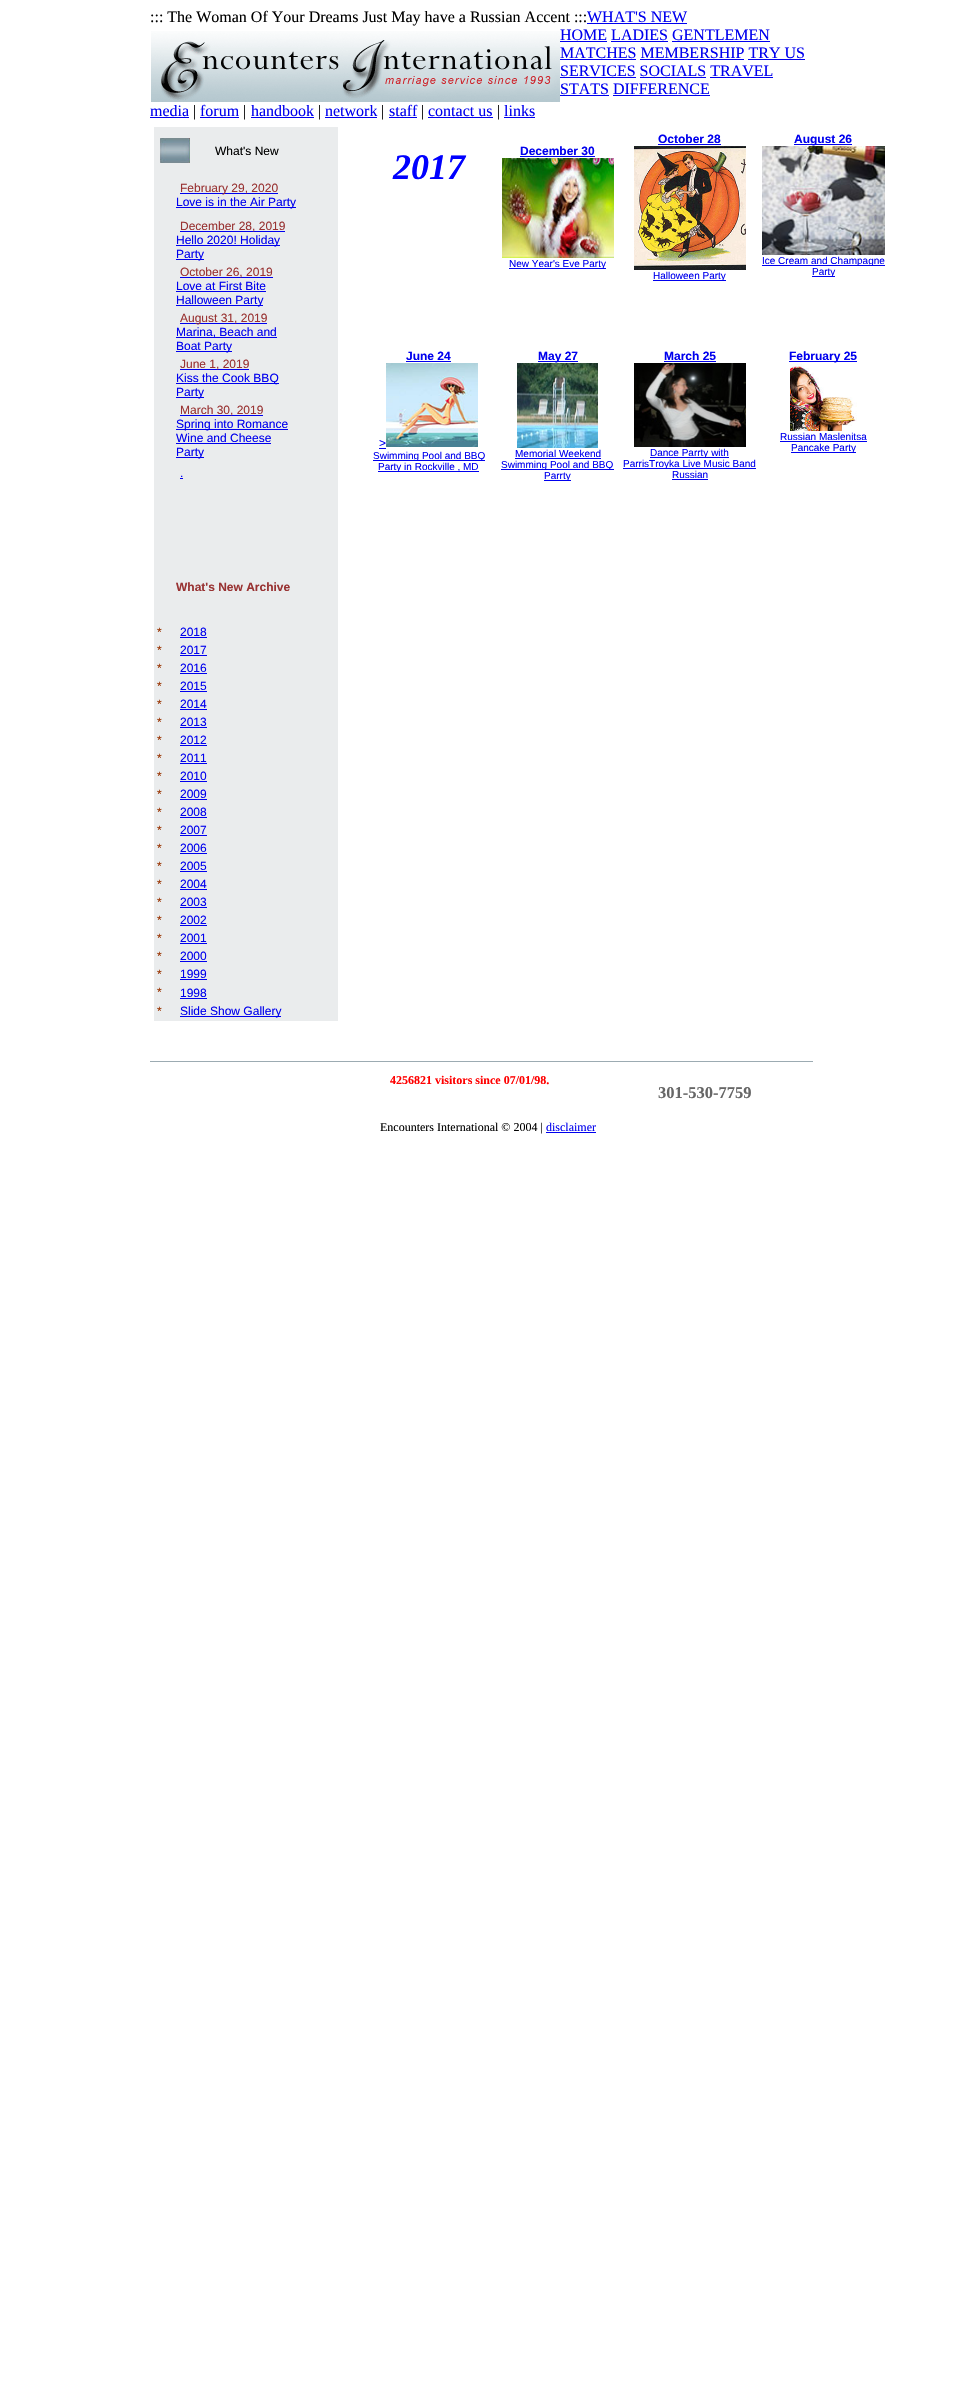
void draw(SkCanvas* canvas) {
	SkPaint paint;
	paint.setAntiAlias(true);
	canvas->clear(0xffffffff);
	SkFont f1(fontMgr->matchFamilyStyle("Liberation Serif", SkFontStyle::Normal()), 16);
	f1.setSubpixel(true);
	paint.setColor(0xff000000);
	canvas->drawString("::: The Woman Of Your Dreams Just May have a Russian Accent :::", 150, 22, f1, paint);
	paint.setColor(0xff0000ee);
	canvas->drawString("WHAT'S NEW", 587, 22, f1, paint);
	canvas->drawRect(SkRect::MakeXYWH(587, 23, 100, 1), paint);
	canvas->drawString("HOME LADIES GENTLEMEN", 560, 40, f1, paint);
	canvas->drawRect(SkRect::MakeXYWH(560, 41, 47, 1), paint);
	canvas->drawRect(SkRect::MakeXYWH(611, 41, 57, 1), paint);
	canvas->drawRect(SkRect::MakeXYWH(672, 41, 98, 1), paint);
	canvas->drawString("MATCHES MEMBERSHIP TRY US", 560, 58, f1, paint);
	canvas->drawRect(SkRect::MakeXYWH(560, 59, 76, 1), paint);
	canvas->drawRect(SkRect::MakeXYWH(640, 59, 104, 1), paint);
	canvas->drawRect(SkRect::MakeXYWH(748, 59, 57, 1), paint);
	canvas->drawString("SERVICES SOCIALS TRAVEL", 560, 76, f1, paint);
	canvas->drawRect(SkRect::MakeXYWH(560, 77, 76, 1), paint);
	canvas->drawRect(SkRect::MakeXYWH(640, 77, 66, 1), paint);
	canvas->drawRect(SkRect::MakeXYWH(710, 77, 63, 1), paint);
	canvas->drawString("STATS DIFFERENCE", 560, 94, f1, paint);
	canvas->drawRect(SkRect::MakeXYWH(560, 95, 49, 1), paint);
	canvas->drawRect(SkRect::MakeXYWH(613, 95, 97, 1), paint);
	canvas->drawImageRect(SkImages::DeferredFromEncodedData(SkData::MakeFromFileName("img1.png")), SkRect::MakeXYWH(151, 31, 409, 71), SkSamplingOptions());
	canvas->drawString("media", 150, 116, f1, paint);
	canvas->drawRect(SkRect::MakeXYWH(150, 117, 39, 1), paint);
	paint.setColor(0xff000000);
	canvas->drawString("|", 193, 116, f1, paint);
	paint.setColor(0xff0000ee);
	canvas->drawString("forum", 200, 116, f1, paint);
	canvas->drawRect(SkRect::MakeXYWH(200, 117, 39, 1), paint);
	paint.setColor(0xff000000);
	canvas->drawString("|", 243, 116, f1, paint);
	paint.setColor(0xff0000ee);
	canvas->drawString("handbook", 251, 116, f1, paint);
	canvas->drawRect(SkRect::MakeXYWH(251, 117, 63, 1), paint);
	paint.setColor(0xff000000);
	canvas->drawString("|", 318, 116, f1, paint);
	paint.setColor(0xff0000ee);
	canvas->drawString("network", 325, 116, f1, paint);
	canvas->drawRect(SkRect::MakeXYWH(325, 117, 52, 1), paint);
	paint.setColor(0xff000000);
	canvas->drawString("|", 381, 116, f1, paint);
	paint.setColor(0xff0000ee);
	canvas->drawString("staff", 389, 116, f1, paint);
	canvas->drawRect(SkRect::MakeXYWH(389, 117, 28, 1), paint);
	paint.setColor(0xff000000);
	canvas->drawString("|", 421, 116, f1, paint);
	paint.setColor(0xff0000ee);
	canvas->drawString("contact us", 428, 116, f1, paint);
	canvas->drawRect(SkRect::MakeXYWH(428, 117, 65, 1), paint);
	paint.setColor(0xff000000);
	canvas->drawString("|", 497, 116, f1, paint);
	paint.setColor(0xff0000ee);
	canvas->drawString("links", 504, 116, f1, paint);
	canvas->drawRect(SkRect::MakeXYWH(504, 117, 31, 1), paint);
	paint.setColor(0xffeaeced);
	canvas->drawRect(SkRect::MakeXYWH(154, 127, 184, 894), paint);
	canvas->drawImageRect(SkImages::DeferredFromEncodedData(SkData::MakeFromFileName("img2.png")), SkRect::MakeXYWH(160, 138, 30, 25), SkSamplingOptions());
	SkFont f2(fontMgr->matchFamilyStyle("Liberation Sans", SkFontStyle::Normal()), 12);
	f2.setSubpixel(true);
	paint.setColor(0xff000000);
	canvas->drawString("What's New", 215, 155, f2, paint);
	paint.setColor(0xff0000ee);
	canvas->drawRect(SkRect::MakeXYWH(180, 193, 98, 1), paint);
	paint.setColor(0xff993333);
	canvas->drawString("February 29, 2020", 180, 192, f2, paint);
	paint.setColor(0xff0000ee);
	canvas->drawRect(SkRect::MakeXYWH(176, 207, 120, 1), paint);
	canvas->drawString("Love is in the Air Party", 176, 206, f2, paint);
	canvas->drawRect(SkRect::MakeXYWH(180, 231, 105, 1), paint);
	paint.setColor(0xff993333);
	canvas->drawString("December 28, 2019", 180, 230, f2, paint);
	paint.setColor(0xff0000ee);
	canvas->drawRect(SkRect::MakeXYWH(176, 245, 104, 1), paint);
	canvas->drawString("Hello 2020! Holiday", 176, 244, f2, paint);
	canvas->drawRect(SkRect::MakeXYWH(176, 259, 28, 1), paint);
	canvas->drawString("Party", 176, 258, f2, paint);
	canvas->drawRect(SkRect::MakeXYWH(180, 277, 93, 1), paint);
	paint.setColor(0xff993333);
	canvas->drawString("October 26, 2019", 180, 276, f2, paint);
	paint.setColor(0xff0000ee);
	canvas->drawString("Love at First Bite", 176, 290, f2, paint);
	canvas->drawRect(SkRect::MakeXYWH(176, 291, 90, 1), paint);
	canvas->drawRect(SkRect::MakeXYWH(176, 305, 87, 1), paint);
	canvas->drawString("Halloween Party", 176, 304, f2, paint);
	canvas->drawRect(SkRect::MakeXYWH(180, 323, 87, 1), paint);
	paint.setColor(0xff993333);
	canvas->drawString("August 31, 2019", 180, 322, f2, paint);
	paint.setColor(0xff0000ee);
	canvas->drawRect(SkRect::MakeXYWH(176, 337, 101, 1), paint);
	canvas->drawString("Marina, Beach and", 176, 336, f2, paint);
	canvas->drawRect(SkRect::MakeXYWH(176, 351, 56, 1), paint);
	canvas->drawString("Boat Party", 176, 350, f2, paint);
	canvas->drawRect(SkRect::MakeXYWH(180, 369, 69, 1), paint);
	paint.setColor(0xff993333);
	canvas->drawString("June 1, 2019", 180, 368, f2, paint);
	paint.setColor(0xff0000ee);
	canvas->drawRect(SkRect::MakeXYWH(176, 383, 103, 1), paint);
	canvas->drawString("Kiss the Cook BBQ", 176, 382, f2, paint);
	canvas->drawRect(SkRect::MakeXYWH(176, 397, 28, 1), paint);
	canvas->drawString("Party", 176, 396, f2, paint);
	canvas->drawRect(SkRect::MakeXYWH(180, 415, 83, 1), paint);
	paint.setColor(0xff993333);
	canvas->drawString("March 30, 2019", 180, 414, f2, paint);
	paint.setColor(0xff0000ee);
	canvas->drawRect(SkRect::MakeXYWH(176, 429, 112, 1), paint);
	canvas->drawString("Spring into Romance", 176, 428, f2, paint);
	canvas->drawString("Wine and Cheese", 176, 442, f2, paint);
	canvas->drawRect(SkRect::MakeXYWH(176, 443, 95, 1), paint);
	canvas->drawRect(SkRect::MakeXYWH(176, 457, 28, 1), paint);
	canvas->drawString("Party", 176, 456, f2, paint);
	canvas->drawString(".", 180, 477, f2, paint);
	canvas->drawRect(SkRect::MakeXYWH(180, 478, 3, 1), paint);
	SkFont f3(fontMgr->matchFamilyStyle("Liberation Sans", SkFontStyle::Bold()), 12);
	f3.setSubpixel(true);
	paint.setColor(0xff993333);
	canvas->drawString("What's New Archive", 176, 591, f3, paint);
	paint.setColor(0xff993300);
	canvas->drawString("*", 157, 636, f2, paint);
	paint.setColor(0xff0000ee);
	canvas->drawString("2018", 180, 636, f2, paint);
	canvas->drawRect(SkRect::MakeXYWH(180, 637, 27, 1), paint);
	paint.setColor(0xff993300);
	canvas->drawString("*", 157, 654, f2, paint);
	paint.setColor(0xff0000ee);
	canvas->drawString("2017", 180, 654, f2, paint);
	canvas->drawRect(SkRect::MakeXYWH(180, 655, 27, 1), paint);
	paint.setColor(0xff993300);
	canvas->drawString("*", 157, 672, f2, paint);
	paint.setColor(0xff0000ee);
	canvas->drawString("2016", 180, 672, f2, paint);
	canvas->drawRect(SkRect::MakeXYWH(180, 673, 27, 1), paint);
	paint.setColor(0xff993300);
	canvas->drawString("*", 157, 690, f2, paint);
	paint.setColor(0xff0000ee);
	canvas->drawString("2015", 180, 690, f2, paint);
	canvas->drawRect(SkRect::MakeXYWH(180, 691, 27, 1), paint);
	paint.setColor(0xff993300);
	canvas->drawString("*", 157, 708, f2, paint);
	paint.setColor(0xff0000ee);
	canvas->drawString("2014", 180, 708, f2, paint);
	canvas->drawRect(SkRect::MakeXYWH(180, 709, 27, 1), paint);
	paint.setColor(0xff993300);
	canvas->drawString("*", 157, 726, f2, paint);
	paint.setColor(0xff0000ee);
	canvas->drawString("2013", 180, 726, f2, paint);
	canvas->drawRect(SkRect::MakeXYWH(180, 727, 27, 1), paint);
	paint.setColor(0xff993300);
	canvas->drawString("*", 157, 744, f2, paint);
	paint.setColor(0xff0000ee);
	canvas->drawString("2012", 180, 744, f2, paint);
	canvas->drawRect(SkRect::MakeXYWH(180, 745, 27, 1), paint);
	paint.setColor(0xff993300);
	canvas->drawString("*", 157, 762, f2, paint);
	paint.setColor(0xff0000ee);
	canvas->drawString("2011", 180, 762, f2, paint);
	canvas->drawRect(SkRect::MakeXYWH(180, 763, 27, 1), paint);
	paint.setColor(0xff993300);
	canvas->drawString("*", 157, 780, f2, paint);
	paint.setColor(0xff0000ee);
	canvas->drawString("2010", 180, 780, f2, paint);
	canvas->drawRect(SkRect::MakeXYWH(180, 781, 27, 1), paint);
	paint.setColor(0xff993300);
	canvas->drawString("*", 157, 798, f2, paint);
	paint.setColor(0xff0000ee);
	canvas->drawString("2009", 180, 798, f2, paint);
	canvas->drawRect(SkRect::MakeXYWH(180, 799, 27, 1), paint);
	paint.setColor(0xff993300);
	canvas->drawString("*", 157, 816, f2, paint);
	paint.setColor(0xff0000ee);
	canvas->drawString("2008", 180, 816, f2, paint);
	canvas->drawRect(SkRect::MakeXYWH(180, 817, 27, 1), paint);
	paint.setColor(0xff993300);
	canvas->drawString("*", 157, 834, f2, paint);
	paint.setColor(0xff0000ee);
	canvas->drawString("2007", 180, 834, f2, paint);
	canvas->drawRect(SkRect::MakeXYWH(180, 835, 27, 1), paint);
	paint.setColor(0xff993300);
	canvas->drawString("*", 157, 852, f2, paint);
	paint.setColor(0xff0000ee);
	canvas->drawString("2006", 180, 852, f2, paint);
	canvas->drawRect(SkRect::MakeXYWH(180, 853, 27, 1), paint);
	paint.setColor(0xff993300);
	canvas->drawString("*", 157, 870, f2, paint);
	paint.setColor(0xff0000ee);
	canvas->drawString("2005", 180, 870, f2, paint);
	canvas->drawRect(SkRect::MakeXYWH(180, 871, 27, 1), paint);
	paint.setColor(0xff993300);
	canvas->drawString("*", 157, 888, f2, paint);
	paint.setColor(0xff0000ee);
	canvas->drawString("2004", 180, 888, f2, paint);
	canvas->drawRect(SkRect::MakeXYWH(180, 889, 27, 1), paint);
	paint.setColor(0xff993300);
	canvas->drawString("*", 157, 906, f2, paint);
	paint.setColor(0xff0000ee);
	canvas->drawString("2003", 180, 906, f2, paint);
	canvas->drawRect(SkRect::MakeXYWH(180, 907, 27, 1), paint);
	paint.setColor(0xff993300);
	canvas->drawString("*", 157, 924, f2, paint);
	paint.setColor(0xff0000ee);
	canvas->drawString("2002", 180, 924, f2, paint);
	canvas->drawRect(SkRect::MakeXYWH(180, 925, 27, 1), paint);
	paint.setColor(0xff993300);
	canvas->drawString("*", 157, 942, f2, paint);
	paint.setColor(0xff0000ee);
	canvas->drawString("2001", 180, 942, f2, paint);
	canvas->drawRect(SkRect::MakeXYWH(180, 943, 27, 1), paint);
	paint.setColor(0xff993300);
	canvas->drawString("*", 157, 960, f2, paint);
	paint.setColor(0xff0000ee);
	canvas->drawString("2000", 180, 960, f2, paint);
	canvas->drawRect(SkRect::MakeXYWH(180, 961, 27, 1), paint);
	paint.setColor(0xff993300);
	canvas->drawString("*", 157, 978, f2, paint);
	paint.setColor(0xff0000ee);
	canvas->drawString("1999", 180, 978, f2, paint);
	canvas->drawRect(SkRect::MakeXYWH(180, 979, 27, 1), paint);
	paint.setColor(0xff993300);
	canvas->drawString("*", 157, 996, f2, paint);
	paint.setColor(0xff0000ee);
	canvas->drawString("1998", 180, 997, f2, paint);
	canvas->drawRect(SkRect::MakeXYWH(180, 998, 27, 1), paint);
	paint.setColor(0xff993300);
	canvas->drawString("*", 157, 1015, f2, paint);
	paint.setColor(0xff0000ee);
	canvas->drawRect(SkRect::MakeXYWH(180, 1016, 101, 1), paint);
	canvas->drawString("Slide Show Gallery", 180, 1015, f2, paint);
	SkFont f4(fontMgr->matchFamilyStyle("Liberation Serif", SkFontStyle::BoldItalic()), 36);
	f4.setSubpixel(true);
	paint.setColor(0xff0000ff);
	canvas->drawString("2017", 393, 179, f4, paint);
	paint.setColor(0xff0000ee);
	canvas->drawString("December 30", 520, 155, f3, paint);
	canvas->drawRect(SkRect::MakeXYWH(520, 156, 75, 1), paint);
	canvas->drawImageRect(SkImages::DeferredFromEncodedData(SkData::MakeFromFileName("img3.png")), SkRect::MakeXYWH(502, 158, 112, 100), SkSamplingOptions());
	canvas->drawRect(SkRect::MakeXYWH(509, 268, 97, 1), paint);
	SkFont f5(fontMgr->matchFamilyStyle("Liberation Sans", SkFontStyle::Normal()), 10);
	f5.setSubpixel(true);
	canvas->drawString("New Year's Eve Party", 509, 267, f5, paint);
	canvas->drawString("October 28", 658, 143, f3, paint);
	canvas->drawRect(SkRect::MakeXYWH(658, 144, 63, 1), paint);
	canvas->drawImageRect(SkImages::DeferredFromEncodedData(SkData::MakeFromFileName("img4.png")), SkRect::MakeXYWH(634, 146, 112, 124), SkSamplingOptions());
	canvas->drawRect(SkRect::MakeXYWH(653, 280, 73, 1), paint);
	canvas->drawString("Halloween Party", 653, 279, f5, paint);
	canvas->drawRect(SkRect::MakeXYWH(794, 144, 58, 1), paint);
	canvas->drawString("August 26", 794, 143, f3, paint);
	canvas->drawImageRect(SkImages::DeferredFromEncodedData(SkData::MakeFromFileName("img5.png")), SkRect::MakeXYWH(762, 146, 123, 109), SkSamplingOptions());
	canvas->drawRect(SkRect::MakeXYWH(762, 265, 123, 1), paint);
	canvas->drawString("Ice Cream and Champagne", 762, 264, f5, paint);
	canvas->drawRect(SkRect::MakeXYWH(812, 276, 23, 1), paint);
	canvas->drawString("Party", 812, 275, f5, paint);
	canvas->drawString("June 24", 406, 360, f3, paint);
	canvas->drawRect(SkRect::MakeXYWH(406, 361, 45, 1), paint);
	canvas->drawString(">", 379, 447, f2, paint);
	canvas->drawRect(SkRect::MakeXYWH(379, 448, 7, 1), paint);
	canvas->drawImageRect(SkImages::DeferredFromEncodedData(SkData::MakeFromFileName("img6.png")), SkRect::MakeXYWH(386, 363, 92, 84), SkSamplingOptions());
	canvas->drawRect(SkRect::MakeXYWH(373, 460, 112, 1), paint);
	canvas->drawString("Swimming Pool and BBQ", 373, 459, f5, paint);
	canvas->drawRect(SkRect::MakeXYWH(378, 471, 101, 1), paint);
	canvas->drawString("Party in Rockville , MD", 378, 470, f5, paint);
	canvas->drawRect(SkRect::MakeXYWH(538, 361, 40, 1), paint);
	canvas->drawString("May 27", 538, 360, f3, paint);
	canvas->drawImageRect(SkImages::DeferredFromEncodedData(SkData::MakeFromFileName("img7.png")), SkRect::MakeXYWH(517, 363, 81, 85), SkSamplingOptions());
	canvas->drawString("Memorial Weekend", 515, 457, f5, paint);
	canvas->drawRect(SkRect::MakeXYWH(515, 458, 86, 1), paint);
	canvas->drawRect(SkRect::MakeXYWH(501, 469, 113, 1), paint);
	canvas->drawString("Swimming Pool and BBQ", 501, 468, f5, paint);
	canvas->drawRect(SkRect::MakeXYWH(544, 480, 27, 1), paint);
	canvas->drawString("Parrty", 544, 479, f5, paint);
	canvas->drawString("March 25", 664, 360, f3, paint);
	canvas->drawRect(SkRect::MakeXYWH(664, 361, 52, 1), paint);
	canvas->drawImageRect(SkImages::DeferredFromEncodedData(SkData::MakeFromFileName("img8.png")), SkRect::MakeXYWH(634, 363, 112, 84), SkSamplingOptions());
	canvas->drawRect(SkRect::MakeXYWH(650, 457, 79, 1), paint);
	canvas->drawString("Dance Parrty with", 650, 456, f5, paint);
	canvas->drawRect(SkRect::MakeXYWH(623, 468, 133, 1), paint);
	canvas->drawString("ParrisTroyka Live Music Band", 623, 467, f5, paint);
	canvas->drawString("Russian", 672, 478, f5, paint);
	canvas->drawRect(SkRect::MakeXYWH(672, 479, 36, 1), paint);
	canvas->drawRect(SkRect::MakeXYWH(789, 361, 68, 1), paint);
	canvas->drawString("February 25", 789, 360, f3, paint);
	canvas->drawImageRect(SkImages::DeferredFromEncodedData(SkData::MakeFromFileName("img9.png")), SkRect::MakeXYWH(790, 363, 67, 68), SkSamplingOptions());
	canvas->drawString("Russian Maslenitsa", 780, 440, f5, paint);
	canvas->drawRect(SkRect::MakeXYWH(780, 441, 87, 1), paint);
	canvas->drawRect(SkRect::MakeXYWH(791, 452, 65, 1), paint);
	canvas->drawString("Pancake Party", 791, 451, f5, paint);
	paint.setColor(0xff9cabb2);
	canvas->drawRect(SkRect::MakeXYWH(150, 1061, 663, 1), paint);
	SkFont f6(fontMgr->matchFamilyStyle("Liberation Serif", SkFontStyle::Bold()), 12);
	f6.setSubpixel(true);
	paint.setColor(0xffff0000);
	canvas->drawString("4256821 visitors since 07/01/98.", 390, 1084, f6, paint);
	SkFont f7(fontMgr->matchFamilyStyle("Liberation Serif", SkFontStyle::Bold()), 16.5);
	f7.setSubpixel(true);
	paint.setColor(0xff666666);
	canvas->drawString("301-530-7759", 658, 1098, f7, paint);
	SkFont f8(fontMgr->matchFamilyStyle("Liberation Serif", SkFontStyle::Normal()), 12);
	f8.setSubpixel(true);
	paint.setColor(0xff000000);
	canvas->drawString("Encounters International © 2004 |", 380, 1131, f8, paint);
	paint.setColor(0xff0000ee);
	canvas->drawString("disclaimer", 546, 1131, f8, paint);
	canvas->drawRect(SkRect::MakeXYWH(546, 1132, 50, 1), paint);
}
